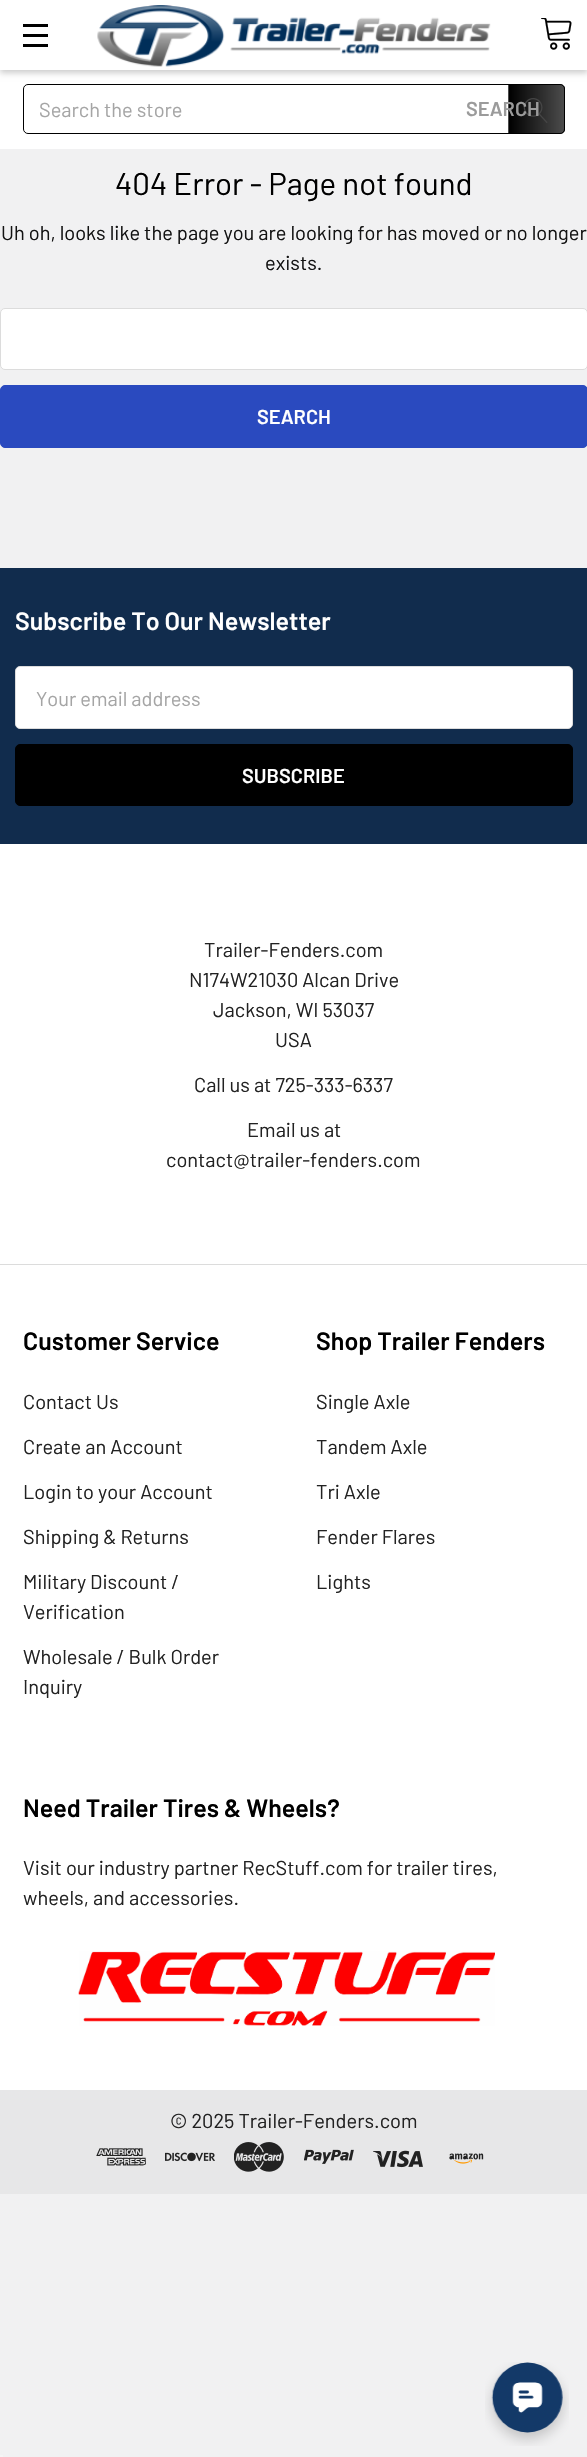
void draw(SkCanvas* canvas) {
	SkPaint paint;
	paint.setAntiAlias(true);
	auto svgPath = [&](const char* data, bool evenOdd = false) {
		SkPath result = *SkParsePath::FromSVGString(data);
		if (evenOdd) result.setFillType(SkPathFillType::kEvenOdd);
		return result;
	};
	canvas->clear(0xfff1f1f2);
	paint.setColor(0xffffffff);
	canvas->drawRect(SkRect::MakeXYWH(0, 70, 587, 79), paint);
	paint.setColor(0x33000000);
	paint.setMaskFilter(SkMaskFilter::MakeBlur(kNormal_SkBlurStyle, 3));
	canvas->drawRect(SkRect::MakeXYWH(0, 3, 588, 70), paint);
	paint.setMaskFilter(nullptr);
	paint.setColor(0xffffffff);
	canvas->drawRect(SkRect::MakeXYWH(0, 0, 587, 70), paint);
	paint.setColor(0xff000000);
	canvas->drawRect(SkRect::MakeXYWH(23, 34, 25, 3), paint);
	canvas->drawRect(SkRect::MakeXYWH(23, 24, 25, 3), paint);
	canvas->drawRect(SkRect::MakeXYWH(23, 44, 25, 3), paint);
	canvas->drawImageRect(SkImages::DeferredFromEncodedData(SkData::MakeFromFileName("img1.png")), SkRect::MakeXYWH(97, 5, 394, 62), SkSamplingOptions());
	canvas->drawImageRect(SkImages::DeferredFromEncodedData(SkData::MakeFromFileName("img2.png")), SkRect::MakeXYWH(541, 18, 31, 32), SkSamplingOptions());
	paint.setStroke(true);
	paint.setStrokeWidth(1);
	canvas->drawRoundRect(SkRect::MakeXYWH(23.5, 84.5, 541, 49), 4.5, 4.5, paint);
	paint.setStroke(false);
	{
		const SkColor colors[] = {0xff000000, 0xb3000000};
		const float stops[] = {0, 1};
		const SkPoint ends[] = {{454, 109}, {509, 109}};
		paint.setShader(SkGradientShader::MakeLinear(ends, colors, stops, 2, SkTileMode::kClamp));
		paint.setAlpha(255);
	}
	canvas->drawRect(SkRect::MakeXYWH(508, 84, 1, 50), paint);
	canvas->save();
	canvas->clipPath(svgPath("M508 84H560C563 84 565 86 565 89V129C565 132 563 134 560 134H508Z"), true);
	{
		const SkColor colors[] = {0xff000000, 0xb3000000};
		const float stops[] = {0, 1};
		const SkPoint ends[] = {{509, 109}, {564, 109}};
		paint.setShader(SkGradientShader::MakeLinear(ends, colors, stops, 2, SkTileMode::kClamp));
		paint.setAlpha(255);
	}
	canvas->drawRect(SkRect::MakeXYWH(509, 84, 55, 50), paint);
	{
		const SkColor colors[] = {0xff000000, 0xb3000000};
		const float stops[] = {0, 1};
		const SkPoint ends[] = {{564, 109}, {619, 109}};
		paint.setShader(SkGradientShader::MakeLinear(ends, colors, stops, 2, SkTileMode::kClamp));
		paint.setAlpha(255);
	}
	canvas->drawRect(SkRect::MakeXYWH(564, 84, 1, 50), paint);
	canvas->restore();
	canvas->drawImageRect(SkImages::DeferredFromEncodedData(SkData::MakeFromFileName("img3.png")), SkRect::MakeXYWH(523, 98, 25, 25), SkSamplingOptions());
	SkFont f1(fontMgr->matchFamilyStyle("Barlow", SkFontStyle::Normal()), 20);
	f1.setSubpixel(true);
	paint.setShader(nullptr);
	paint.setColor(0xffa5a5a5);
	canvas->drawString("Search the store", 39, 117, f1, paint);
	SkFont f2(fontMgr->matchFamilyStyle("Barlow", SkFontStyle(600, SkFontStyle::kNormal_Width, SkFontStyle::kUpright_Slant)), 20);
	f2.setSubpixel(true);
	paint.setColor(0xff9b9b9b);
	canvas->drawString("SEARCH", 466, 116, f2, paint);
	SkFont f3(fontMgr->matchFamilyStyle("Barlow", SkFontStyle::Normal()), 31.25);
	f3.setSubpixel(true);
	paint.setColor(0xff000000);
	canvas->drawString("404 Error - Page not found", 115, 195, f3, paint);
	paint.setColor(0xff131313);
	canvas->drawString("Uh oh, looks like the page you are looking for has moved or no longer", 1, 240, f1, paint);
	canvas->drawString("exists.", 265, 270, f1, paint);
	paint.setColor(0xffffffff);
	canvas->drawRoundRect(SkRect::MakeXYWH(0.5, 308.5, 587, 61), 4.5, 4.5, paint);
	paint.setStroke(true);
	paint.setColor(0xffdcdcdc);
	canvas->drawRoundRect(SkRect::MakeXYWH(0.5, 308.5, 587, 61), 4.5, 4.5, paint);
	paint.setStroke(false);
	paint.setColor(0xff2a4abf);
	canvas->drawRoundRect(SkRect::MakeXYWH(0.5, 385.5, 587, 62), 4.5, 4.5, paint);
	paint.setStroke(true);
	canvas->drawRoundRect(SkRect::MakeXYWH(0.5, 385.5, 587, 62), 4.5, 4.5, paint);
	paint.setStroke(false);
	paint.setColor(0xffffffff);
	canvas->drawString("SEARCH", 257, 424, f2, paint);
	canvas->drawRect(SkRect::MakeXYWH(0, 844, 587, 1246), paint);
	paint.setColor(0xff112c4d);
	canvas->drawRect(SkRect::MakeXYWH(0, 568, 587, 276), paint);
	SkFont f4(fontMgr->matchFamilyStyle("Barlow", SkFontStyle(600, SkFontStyle::kNormal_Width, SkFontStyle::kUpright_Slant)), 25);
	f4.setSubpixel(true);
	paint.setColor(0xffffffff);
	canvas->drawString("Subscribe To Our Newsletter", 15, 630, f4, paint);
	canvas->drawRoundRect(SkRect::MakeXYWH(15.5, 666.5, 557, 62), 4.5, 4.5, paint);
	paint.setStroke(true);
	paint.setColor(0xffdcdcdc);
	canvas->drawRoundRect(SkRect::MakeXYWH(15.5, 666.5, 557, 62), 4.5, 4.5, paint);
	paint.setStroke(false);
	paint.setColor(0xffa5a5a5);
	canvas->drawString("Your email address", 36, 706, f1, paint);
	paint.setColor(0xff000000);
	canvas->drawRoundRect(SkRect::MakeXYWH(15.5, 744.5, 557, 61), 4.5, 4.5, paint);
	paint.setStroke(true);
	canvas->drawRoundRect(SkRect::MakeXYWH(15.5, 744.5, 557, 61), 4.5, 4.5, paint);
	paint.setStroke(false);
	paint.setColor(0xffffffff);
	canvas->drawString("SUBSCRIBE", 242, 783, f2, paint);
	paint.setColor(0xffdcdcdc);
	canvas->drawRect(SkRect::MakeXYWH(0, 1264, 587, 1), paint);
	paint.setColor(0xff222222);
	canvas->drawString("Trailer-Fenders.com", 204, 957, f1, paint);
	canvas->drawString("N174W21030 Alcan Drive", 189, 987, f1, paint);
	canvas->drawString("Jackson, WI 53037", 213, 1017, f1, paint);
	canvas->drawString("USA", 275, 1047, f1, paint);
	canvas->drawString("Call us at 725-333-6337", 194, 1092, f1, paint);
	canvas->drawString("Email us at", 247, 1137, f1, paint);
	canvas->drawString("contact@trailer-fenders.com", 166, 1167, f1, paint);
	paint.setColor(0xff000000);
	canvas->drawString("Customer Service", 23, 1350, f4, paint);
	paint.setColor(0xff222222);
	canvas->drawString("Contact Us", 23, 1409, f1, paint);
	canvas->drawString("Create an Account", 23, 1454, f1, paint);
	canvas->drawString("Login to your Account", 23, 1499, f1, paint);
	canvas->drawString("Shipping & Returns", 23, 1544, f1, paint);
	canvas->drawString("Military Discount /", 23, 1589, f1, paint);
	canvas->drawString("Verification", 23, 1619, f1, paint);
	canvas->drawString("Wholesale / Bulk Order", 23, 1664, f1, paint);
	canvas->drawString("Inquiry", 23, 1694, f1, paint);
	paint.setColor(0xff000000);
	canvas->drawString("Shop Trailer Fenders", 316, 1350, f4, paint);
	paint.setColor(0xff222222);
	canvas->drawString("Single Axle", 316, 1409, f1, paint);
	canvas->drawString("Tandem Axle", 316, 1454, f1, paint);
	canvas->drawString("Tri Axle", 316, 1499, f1, paint);
	canvas->drawString("Fender Flares", 316, 1544, f1, paint);
	canvas->drawString("Lights", 316, 1589, f1, paint);
	paint.setColor(0xff000000);
	canvas->drawString("Need Trailer Tires & Wheels?", 23, 1817, f4, paint);
	paint.setColor(0xff222222);
	canvas->drawString("Visit our industry partner RecStuff.com for trailer tires,", 23, 1875, f1, paint);
	canvas->drawString("wheels, and accessories.", 23, 1905, f1, paint);
	canvas->drawImageRect(SkImages::DeferredFromEncodedData(SkData::MakeFromFileName("img4.png")), SkRect::MakeXYWH(78, 1951, 417, 75), SkSamplingOptions());
	paint.setColor(0xffe7e7e8);
	canvas->drawRect(SkRect::MakeXYWH(0, 2090, 587, 104), paint);
	paint.setColor(0xff222222);
	canvas->drawString("© 2025 Trailer-Fenders.com", 170, 2128, f1, paint);
	canvas->drawImageRect(SkImages::DeferredFromEncodedData(SkData::MakeFromFileName("img5.png")), SkRect::MakeXYWH(96, 2148, 50, 18), SkSamplingOptions());
	canvas->drawImageRect(SkImages::DeferredFromEncodedData(SkData::MakeFromFileName("img6.png")), SkRect::MakeXYWH(165, 2152, 50, 10), SkSamplingOptions());
	canvas->drawImageRect(SkImages::DeferredFromEncodedData(SkData::MakeFromFileName("img7.png")), SkRect::MakeXYWH(234, 2142, 50, 30), SkSamplingOptions());
	canvas->drawImageRect(SkImages::DeferredFromEncodedData(SkData::MakeFromFileName("img8.png")), SkRect::MakeXYWH(304, 2149, 50, 15), SkSamplingOptions());
	canvas->drawImageRect(SkImages::DeferredFromEncodedData(SkData::MakeFromFileName("img9.png")), SkRect::MakeXYWH(373, 2150, 50, 18), SkSamplingOptions());
	canvas->drawImageRect(SkImages::DeferredFromEncodedData(SkData::MakeFromFileName("img10.png")), SkRect::MakeXYWH(449, 2153, 35, 11), SkSamplingOptions());
	canvas->drawImageRect(SkImages::DeferredFromEncodedData(SkData::MakeFromFileName("img11.png")), SkRect::MakeXYWH(485, 2362, 84, 84), SkSamplingOptions());
	paint.setColor(0xfff5f5f5);
	canvas->drawRect(SkRect::MakeXYWH(0, 2455, 3, 2), paint);
}
